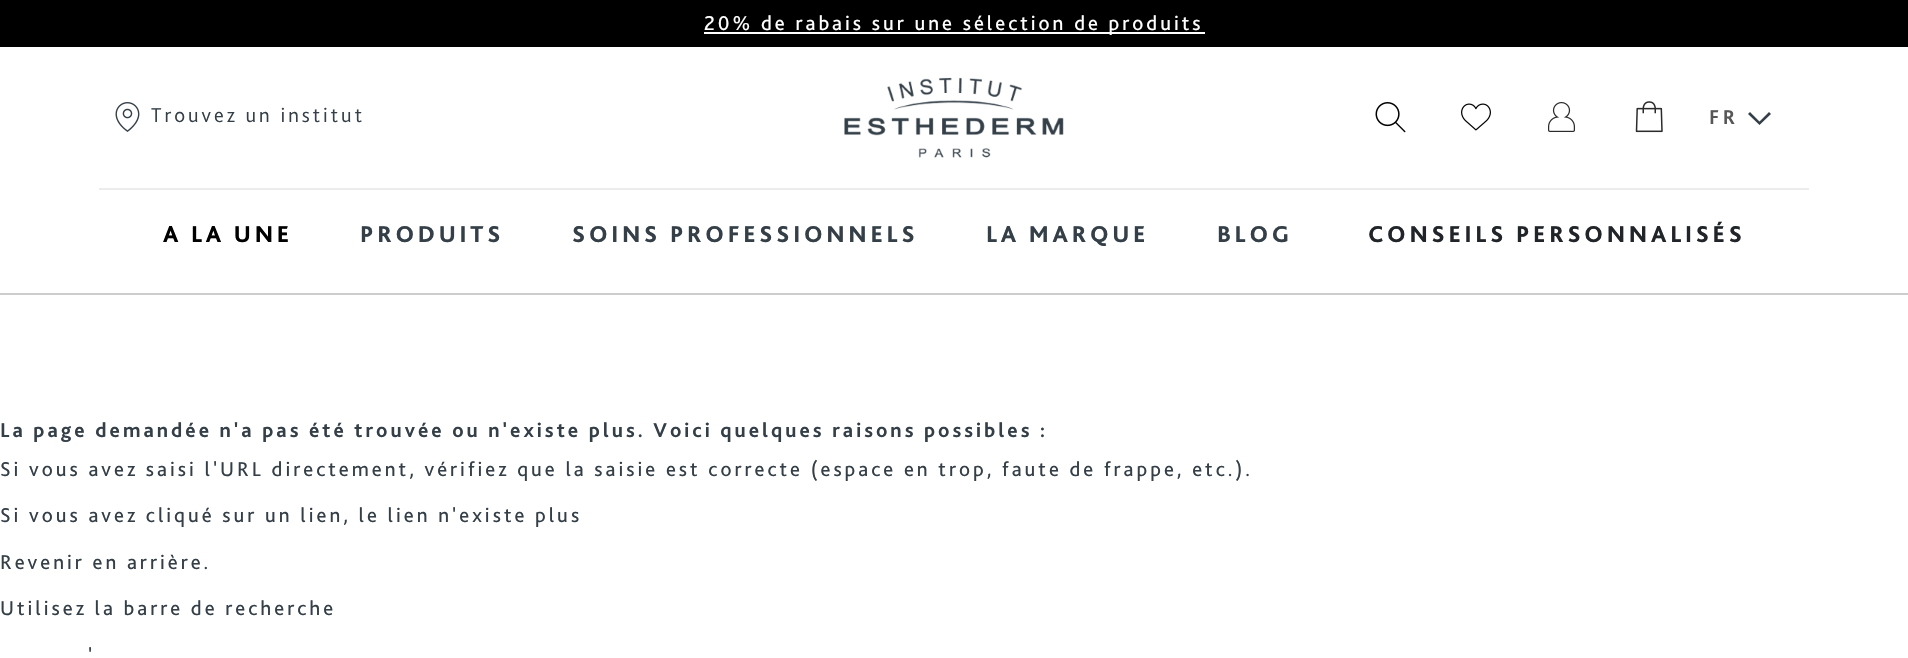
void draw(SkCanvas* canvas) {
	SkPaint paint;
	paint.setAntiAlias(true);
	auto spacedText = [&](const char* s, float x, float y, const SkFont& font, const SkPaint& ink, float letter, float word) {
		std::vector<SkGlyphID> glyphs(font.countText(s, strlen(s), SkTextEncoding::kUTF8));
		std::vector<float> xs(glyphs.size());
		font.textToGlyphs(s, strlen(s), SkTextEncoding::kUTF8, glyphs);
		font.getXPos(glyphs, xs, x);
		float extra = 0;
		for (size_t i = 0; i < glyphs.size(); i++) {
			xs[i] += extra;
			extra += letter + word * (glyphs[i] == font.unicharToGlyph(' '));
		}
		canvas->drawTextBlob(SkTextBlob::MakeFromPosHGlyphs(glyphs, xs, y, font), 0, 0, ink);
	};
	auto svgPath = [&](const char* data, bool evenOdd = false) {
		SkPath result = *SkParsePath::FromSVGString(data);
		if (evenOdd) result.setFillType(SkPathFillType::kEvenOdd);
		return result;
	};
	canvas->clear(0xffffffff);
	paint.setColor(0xffcccccc);
	canvas->drawRect(SkRect::MakeXYWH(0, 293, 1908, 2), paint);
	paint.setColor(0xff000000);
	canvas->drawRect(SkRect::MakeXYWH(0, 0, 1908, 47), paint);
	paint.setColor(0xffffffff);
	canvas->drawRect(SkRect::MakeXYWH(704, 32, 501, 2), paint);
	SkFont f1(fontMgr->matchFamilyStyle("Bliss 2", SkFontStyle::Normal()), 21);
	f1.setSubpixel(true);
	spacedText("20% de rabais sur une sélection de produits", 704, 30, f1, paint, 3, 0);
	canvas->drawImageRect(SkImages::DeferredFromEncodedData(SkData::MakeFromFileName("img1.png")), SkRect::MakeXYWH(115, 102, 25, 30), SkSamplingOptions());
	SkFont f2(fontMgr->matchFamilyStyle("Bliss 2", SkFontStyle(300, SkFontStyle::kNormal_Width, SkFontStyle::kUpright_Slant)), 21);
	f2.setSubpixel(true);
	paint.setColor(0xff343f48);
	spacedText("Trouvez un institut", 151, 122, f2, paint, 3, 0);
	canvas->drawImageRect(SkImages::DeferredFromEncodedData(SkData::MakeFromFileName("img2.png")), SkRect::MakeXYWH(844, 77, 220, 81), SkSamplingOptions());
	canvas->drawImageRect(SkImages::DeferredFromEncodedData(SkData::MakeFromFileName("img3.png")), SkRect::MakeXYWH(1375, 102, 31, 31), SkSamplingOptions());
	canvas->drawImageRect(SkImages::DeferredFromEncodedData(SkData::MakeFromFileName("img4.png")), SkRect::MakeXYWH(1461, 103, 30, 28), SkSamplingOptions());
	canvas->drawImageRect(SkImages::DeferredFromEncodedData(SkData::MakeFromFileName("img5.png")), SkRect::MakeXYWH(1548, 102, 27, 30), SkSamplingOptions());
	canvas->drawImageRect(SkImages::DeferredFromEncodedData(SkData::MakeFromFileName("img6.png")), SkRect::MakeXYWH(1635, 101, 28, 32), SkSamplingOptions());
	SkFont f3(fontMgr->matchFamilyStyle("Bliss 2", SkFontStyle::Bold()), 21);
	f3.setSubpixel(true);
	paint.setColor(0xff575757);
	spacedText("FR", 1709, 124, f3, paint, 3.75, 0);
	paint.setColor(0xff343f48);
	canvas->drawPath(svgPath("M1759.5 121.5L1750 112L1748 114L1759.5 125L1771 114L1769 112Z"), paint);
	paint.setColor(0xffebeceb);
	canvas->drawRect(SkRect::MakeXYWH(99, 188, 1710, 2), paint);
	SkFont f4(fontMgr->matchFamilyStyle("Bliss 2", SkFontStyle(800, SkFontStyle::kNormal_Width, SkFontStyle::kUpright_Slant)), 24);
	f4.setSubpixel(true);
	paint.setColor(0xff000000);
	spacedText("A LA UNE", 163, 242, f4, paint, 3.75, 0);
	paint.setColor(0xff343f48);
	spacedText("PRODUITS", 360, 242, f4, paint, 3.75, 0);
	spacedText("SOINS PROFESSIONNELS", 572, 242, f4, paint, 3.75, 0);
	spacedText("LA MARQUE", 986, 242, f4, paint, 3.75, 0);
	spacedText("BLOG", 1217, 242, f4, paint, 3.75, 0);
	paint.setColor(0xff212529);
	spacedText("CONSEILS PERSONNALISÉS", 1368, 242, f4, paint, 3.75, 0);
	paint.setColor(0xff343f48);
	spacedText("La page demandée n'a pas été trouvée ou n'existe plus. Voici quelques raisons possibles :", 0, 437, f3, paint, 3, 0);
	spacedText("Si vous avez saisi l'URL directement, vérifiez que la saisie est correcte (espace en trop, faute de frappe, etc.).", 0, 476, f1, paint, 3, 0);
	spacedText("Si vous avez cliqué sur un lien, le lien n'existe plus", 0, 522, f1, paint, 3, 0);
	spacedText("Revenir en arrière.", 0, 569, f1, paint, 3, 0);
	spacedText("Utilisez la barre de recherche", 0, 615, f1, paint, 3, 0);
	spacedText("'", 88, 662, f1, paint, 3, 0);
}
